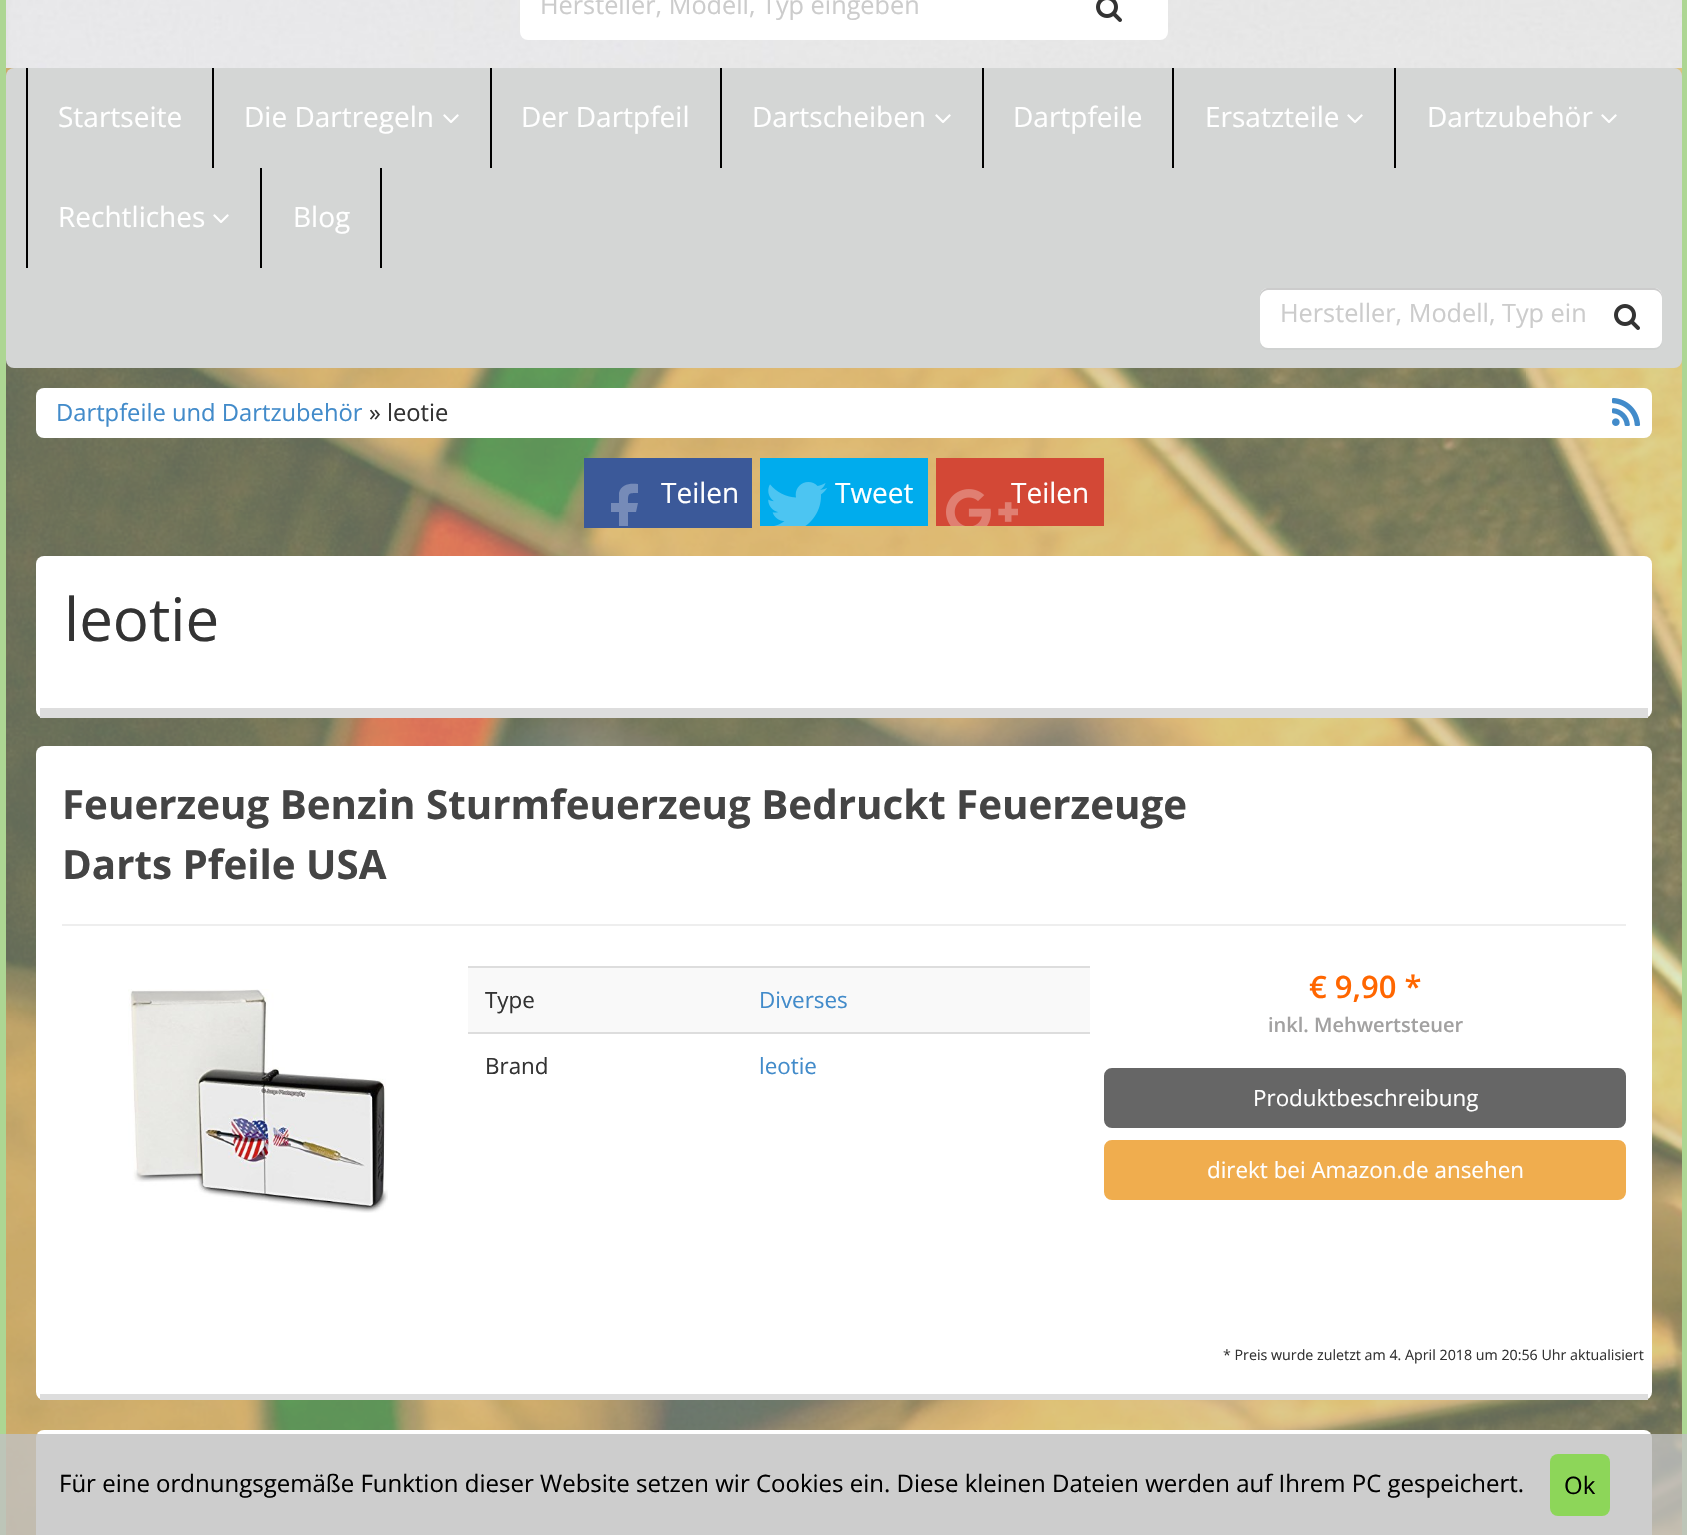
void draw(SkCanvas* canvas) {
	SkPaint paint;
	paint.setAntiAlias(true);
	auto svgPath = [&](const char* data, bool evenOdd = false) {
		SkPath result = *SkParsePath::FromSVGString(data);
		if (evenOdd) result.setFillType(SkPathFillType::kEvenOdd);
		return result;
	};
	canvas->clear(0xffffffff);
	canvas->drawImageRect(SkImages::DeferredFromEncodedData(SkData::MakeFromFileName("img1.png")), SkRect::MakeXYWH(6, 68, 1676, 1467), SkSamplingOptions());
	paint.setColor(0xffadd693);
	canvas->drawRect(SkRect::MakeXYWH(1682, 0, 5, 1535), paint);
	canvas->drawRect(SkRect::MakeXYWH(0, 0, 6, 1535), paint);
	canvas->drawImageRect(SkImages::DeferredFromEncodedData(SkData::MakeFromFileName("img2.png")), SkRect::MakeXYWH(6, 0, 1676, 68), SkSamplingOptions());
	paint.setColor(0xffffffff);
	canvas->drawRoundRect(SkRect::MakeXYWH(520, -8, 648, 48), 8, 8, paint);
	SkFont f1(fontMgr->matchFamilyStyle("Open Sans", SkFontStyle::Normal()), 25.25);
	f1.setSubpixel(true);
	paint.setColor(0xffcccccc);
	canvas->drawString("Hersteller, Modell, Typ eingeben", 540, 14, f1, paint);
	canvas->drawImageRect(SkImages::DeferredFromEncodedData(SkData::MakeFromFileName("img3.png")), SkRect::MakeXYWH(1096, 0, 26, 22), SkSamplingOptions());
	paint.setColor(0xffd4d6d5);
	canvas->drawRoundRect(SkRect::MakeXYWH(6, 68, 1676, 300), 8, 8, paint);
	paint.setColor(0xff000000);
	canvas->drawRect(SkRect::MakeXYWH(26, 68, 2, 200), paint);
	SkFont f2(fontMgr->matchFamilyStyle("Open Sans", SkFontStyle::Normal()), 28);
	f2.setSubpixel(true);
	paint.setColor(0xffffffff);
	canvas->drawString("Startseite", 58, 127, f2, paint);
	paint.setColor(0xff000000);
	canvas->drawRect(SkRect::MakeXYWH(212, 68, 2, 100), paint);
	paint.setColor(0xffffffff);
	canvas->drawString("Die Dartregeln", 244, 127, f2, paint);
	canvas->drawImageRect(SkImages::DeferredFromEncodedData(SkData::MakeFromFileName("img4.png")), SkRect::MakeXYWH(443, 114, 16, 9), SkSamplingOptions());
	paint.setColor(0xff000000);
	canvas->drawRect(SkRect::MakeXYWH(490, 68, 2, 100), paint);
	paint.setColor(0xffffffff);
	canvas->drawString("Der Dartpfeil", 521, 127, f2, paint);
	paint.setColor(0xff000000);
	canvas->drawRect(SkRect::MakeXYWH(720, 68, 2, 100), paint);
	paint.setColor(0xffffffff);
	canvas->drawString("Dartscheiben", 752, 127, f2, paint);
	canvas->drawImageRect(SkImages::DeferredFromEncodedData(SkData::MakeFromFileName("img4.png")), SkRect::MakeXYWH(935, 114, 16, 9), SkSamplingOptions());
	paint.setColor(0xff000000);
	canvas->drawRect(SkRect::MakeXYWH(982, 68, 2, 100), paint);
	paint.setColor(0xffffffff);
	canvas->drawString("Dartpfeile", 1013, 127, f2, paint);
	paint.setColor(0xff000000);
	canvas->drawRect(SkRect::MakeXYWH(1172, 68, 2, 100), paint);
	paint.setColor(0xffffffff);
	canvas->drawString("Ersatzteile", 1205, 127, f2, paint);
	canvas->drawImageRect(SkImages::DeferredFromEncodedData(SkData::MakeFromFileName("img4.png")), SkRect::MakeXYWH(1347, 114, 16, 9), SkSamplingOptions());
	paint.setColor(0xff000000);
	canvas->drawRect(SkRect::MakeXYWH(1394, 68, 2, 100), paint);
	paint.setColor(0xffffffff);
	canvas->drawString("Dartzubehör", 1427, 127, f2, paint);
	canvas->drawImageRect(SkImages::DeferredFromEncodedData(SkData::MakeFromFileName("img4.png")), SkRect::MakeXYWH(1601, 114, 16, 9), SkSamplingOptions());
	canvas->drawString("Rechtliches", 58, 227, f2, paint);
	canvas->drawImageRect(SkImages::DeferredFromEncodedData(SkData::MakeFromFileName("img4.png")), SkRect::MakeXYWH(213, 214, 16, 9), SkSamplingOptions());
	paint.setColor(0xff000000);
	canvas->drawRect(SkRect::MakeXYWH(380, 168, 2, 100), paint);
	canvas->drawRect(SkRect::MakeXYWH(260, 168, 2, 100), paint);
	paint.setColor(0xffffffff);
	canvas->drawString("Blog", 293, 227, f2, paint);
	paint.setColor(0xffcfd1d0);
	canvas->drawPath(svgPath("M1260 340V342C1260 346 1264 350 1268 350H1654C1658 350 1662 346 1662 342V340C1662 344 1658 348 1654 348H1268C1264 348 1260 344 1260 340Z"), paint);
	paint.setColor(0xffffffff);
	canvas->drawRoundRect(SkRect::MakeXYWH(1260, 288, 402, 60), 8, 8, paint);
	paint.setColor(0x33000000);
	canvas->drawPath(svgPath("M1268 290H1654C1658 290 1662 294 1662 298V296C1662 292 1658 288 1654 288H1268C1264 288 1260 292 1260 296V298C1260 294 1264 290 1268 290Z"), paint);
	paint.setColor(0xffcccccc);
	canvas->drawString("Hersteller, Modell, Typ ein", 1280, 322, f1, paint);
	canvas->drawImageRect(SkImages::DeferredFromEncodedData(SkData::MakeFromFileName("img5.png")), SkRect::MakeXYWH(1614, 304, 26, 26), SkSamplingOptions());
	paint.setColor(0xffffffff);
	canvas->drawRoundRect(SkRect::MakeXYWH(36, 388, 1616, 50), 8, 8, paint);
	SkFont f3(fontMgr->matchFamilyStyle("Open Sans", SkFontStyle::Normal()), 23.75);
	f3.setSubpixel(true);
	paint.setColor(0xff428bca);
	canvas->drawString("Dartpfeile und Dartzubehör", 56, 421, f3, paint);
	paint.setColor(0xff333333);
	canvas->drawString("» leotie", 369, 421, f3, paint);
	canvas->drawImageRect(SkImages::DeferredFromEncodedData(SkData::MakeFromFileName("img6.png")), SkRect::MakeXYWH(1612, 397, 29, 29), SkSamplingOptions());
	paint.setColor(0xff3b5999);
	canvas->drawRect(SkRect::MakeXYWH(584, 458, 168, 70), paint);
	canvas->save();
	canvas->clipRect(SkRect::MakeXYWH(584, 458, 168, 68));
	paint.setColor(0xff768bb8);
	canvas->drawPath(svgPath("M638 484V493C628 493 628 493 628 503H638L636 512H628V536H619V512H611V503H619V493C621 484 630 483 638 484Z"), paint);
	canvas->restore();
	paint.setColor(0xffffffff);
	canvas->drawString("Teilen", 661, 503, f2, paint);
	paint.setColor(0xff00aced);
	canvas->drawRect(SkRect::MakeXYWH(760, 458, 168, 68), paint);
	canvas->drawImageRect(SkImages::DeferredFromEncodedData(SkData::MakeFromFileName("img7.png")), SkRect::MakeXYWH(768, 482, 59, 44), SkSamplingOptions());
	paint.setColor(0xffffffff);
	canvas->drawString("Tweet", 835, 503, f2, paint);
	paint.setColor(0xffd34836);
	canvas->drawRect(SkRect::MakeXYWH(936, 458, 168, 68), paint);
	paint.setColor(0xffffffff);
	canvas->drawString("Teilen", 1011, 503, f2, paint);
	canvas->drawImageRect(SkImages::DeferredFromEncodedData(SkData::MakeFromFileName("img8.png")), SkRect::MakeXYWH(946, 489, 72, 37), SkSamplingOptions());
	canvas->drawRoundRect(SkRect::MakeXYWH(36, 556, 1616, 162), 8, 8, paint);
	paint.setColor(0xffdddddd);
	canvas->drawRect(SkRect::MakeXYWH(40, 708, 1608, 10), paint);
	SkFont f4(fontMgr->matchFamilyStyle("Open Sans", SkFontStyle::Normal()), 60);
	f4.setSubpixel(true);
	paint.setColor(0xff333333);
	canvas->drawString("leotie", 64, 641, f4, paint);
	paint.setColor(0xffffffff);
	canvas->drawRoundRect(SkRect::MakeXYWH(36, 746, 1616, 654), 8, 8, paint);
	paint.setColor(0xffdddddd);
	canvas->drawRect(SkRect::MakeXYWH(40, 1394, 1608, 6), paint);
	SkFont f5(fontMgr->matchFamilyStyle("Open Sans", SkFontStyle::Bold()), 40.3);
	f5.setSubpixel(true);
	paint.setColor(0xff444444);
	canvas->drawString("Feuerzeug Benzin Sturmfeuerzeug Bedruckt Feuerzeuge", 62, 819, f5, paint);
	canvas->drawString("Darts Pfeile USA", 62, 879, f5, paint);
	paint.setColor(0xffeeeeee);
	canvas->drawRect(SkRect::MakeXYWH(62, 924, 1564, 2), paint);
	canvas->drawImageRect(SkImages::DeferredFromEncodedData(SkData::MakeFromFileName("img9.png")), SkRect::MakeXYWH(128, 989, 260, 224), SkSamplingOptions());
	paint.setColor(0xfff9f9f9);
	canvas->drawRect(SkRect::MakeXYWH(468, 968, 622, 64), paint);
	SkFont f6(fontMgr->matchFamilyStyle("Open Sans", SkFontStyle::Normal()), 22.4);
	f6.setSubpixel(true);
	paint.setColor(0xff333333);
	canvas->drawString("Type", 485, 1008, f6, paint);
	paint.setColor(0xffdddddd);
	canvas->drawRect(SkRect::MakeXYWH(468, 966, 622, 2), paint);
	paint.setColor(0xff428bca);
	canvas->drawString("Diverses", 759, 1008, f6, paint);
	paint.setColor(0xff333333);
	canvas->drawString("Brand", 485, 1074, f6, paint);
	paint.setColor(0xffdddddd);
	canvas->drawRect(SkRect::MakeXYWH(468, 1032, 622, 2), paint);
	paint.setColor(0xff428bca);
	canvas->drawString("leotie", 759, 1074, f6, paint);
	SkFont f7(fontMgr->matchFamilyStyle("Open Sans", SkFontStyle(600, SkFontStyle::kNormal_Width, SkFontStyle::kUpright_Slant)), 31);
	f7.setSubpixel(true);
	paint.setColor(0xffff6600);
	canvas->drawString("€ 9,90 *", 1309, 998, f7, paint);
	SkFont f8(fontMgr->matchFamilyStyle("Open Sans", SkFontStyle(600, SkFontStyle::kNormal_Width, SkFontStyle::kUpright_Slant)), 20);
	f8.setSubpixel(true);
	paint.setColor(0xffa2a1a1);
	canvas->drawString("inkl. Mehwertsteuer", 1268, 1032, f8, paint);
	paint.setColor(0xff666666);
	canvas->drawRoundRect(SkRect::MakeXYWH(1105, 1069, 520, 58), 7, 7, paint);
	paint.setStroke(true);
	paint.setStrokeWidth(2);
	canvas->drawRoundRect(SkRect::MakeXYWH(1105, 1069, 520, 58), 7, 7, paint);
	paint.setStroke(false);
	paint.setColor(0xffffffff);
	canvas->drawString("Produktbeschreibung", 1253, 1106, f6, paint);
	paint.setColor(0xfff0ad4e);
	canvas->drawRoundRect(SkRect::MakeXYWH(1105, 1141, 520, 58), 7, 7, paint);
	paint.setStroke(true);
	canvas->drawRoundRect(SkRect::MakeXYWH(1105, 1141, 520, 58), 7, 7, paint);
	paint.setStroke(false);
	paint.setColor(0xffffffff);
	canvas->drawString("direkt bei Amazon.de ansehen", 1207, 1178, f6, paint);
	SkFont f9(fontMgr->matchFamilyStyle("Open Sans", SkFontStyle::Normal()), 14.25);
	f9.setSubpixel(true);
	paint.setColor(0xff333333);
	canvas->drawString("* Preis wurde zuletzt am 4. April 2018 um 20:56 Uhr aktualisiert", 1223, 1360, f9, paint);
	paint.setColor(0xffffffff);
	canvas->drawRoundRect(SkRect::MakeXYWH(36, 1430, 1616, 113), 8, 8, paint);
	paint.setColor(0xccc1c1c1);
	canvas->drawRect(SkRect::MakeXYWH(0, 1434, 1687, 101), paint);
	SkFont f10(fontMgr->matchFamilyStyle("Open Sans", SkFontStyle::Normal()), 24);
	f10.setSubpixel(true);
	paint.setColor(0xff000000);
	canvas->drawString("Für eine ordnungsgemäße Funktion dieser Website setzen wir Cookies ein. Diese kleinen Dateien werden auf Ihrem PC gespeichert.", 59, 1492, f10, paint);
	paint.setColor(0xff8dd659);
	canvas->drawRoundRect(SkRect::MakeXYWH(1550, 1454, 60, 62), 8, 8, paint);
	paint.setColor(0xff000000);
	canvas->drawString("Ok", 1564, 1494, f10, paint);
}
